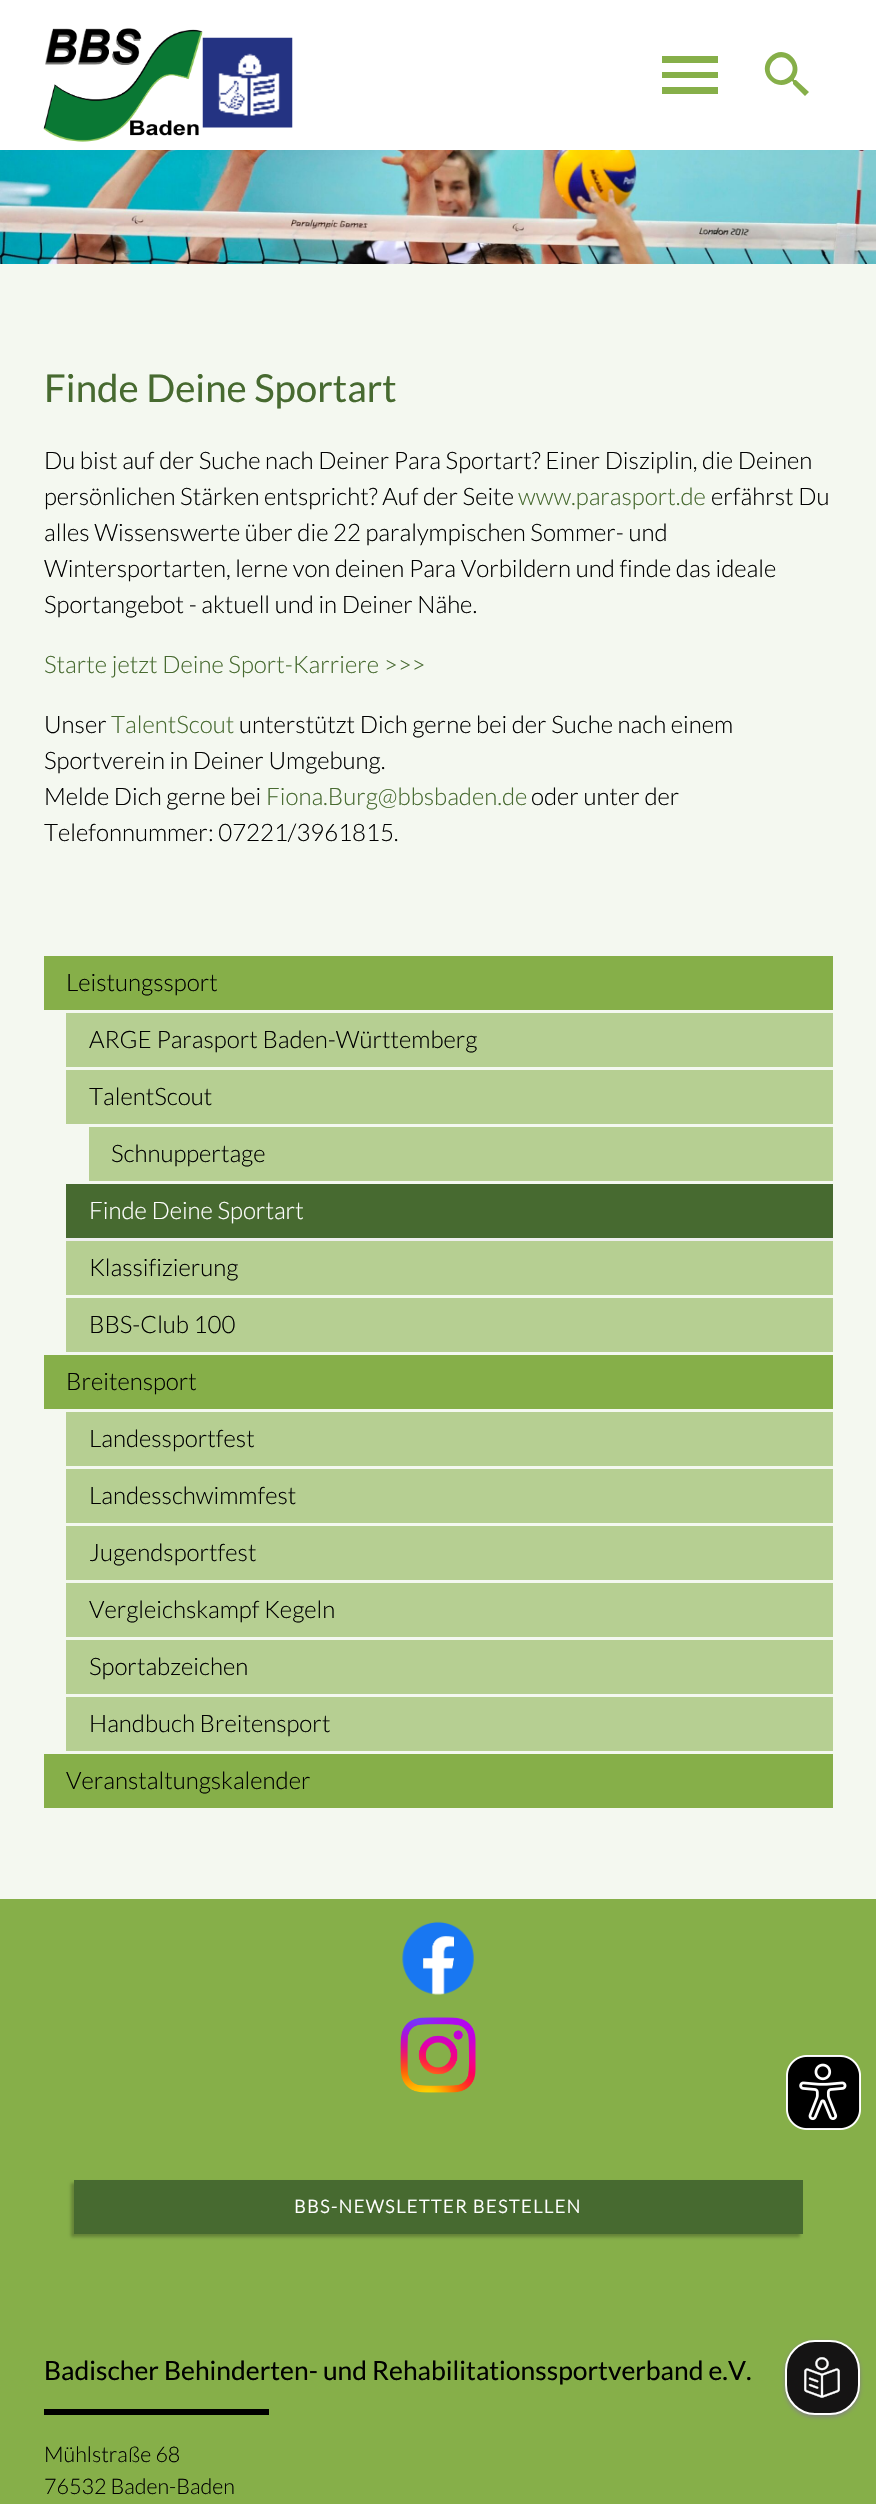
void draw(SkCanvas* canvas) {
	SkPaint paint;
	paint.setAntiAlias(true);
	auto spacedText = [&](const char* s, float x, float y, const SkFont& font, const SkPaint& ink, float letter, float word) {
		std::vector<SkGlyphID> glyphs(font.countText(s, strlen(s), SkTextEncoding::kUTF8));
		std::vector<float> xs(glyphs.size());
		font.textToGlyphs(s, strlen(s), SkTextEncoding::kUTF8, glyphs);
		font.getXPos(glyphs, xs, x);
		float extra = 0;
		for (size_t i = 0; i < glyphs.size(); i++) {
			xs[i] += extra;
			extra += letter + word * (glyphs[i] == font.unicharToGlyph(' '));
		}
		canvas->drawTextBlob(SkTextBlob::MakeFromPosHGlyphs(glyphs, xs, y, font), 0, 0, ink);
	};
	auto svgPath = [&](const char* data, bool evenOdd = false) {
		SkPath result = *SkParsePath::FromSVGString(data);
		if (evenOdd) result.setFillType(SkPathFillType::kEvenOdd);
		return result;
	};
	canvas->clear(0xfff4f8f0);
	paint.setColor(0xffffffff);
	canvas->drawRect(SkRect::MakeXYWH(0, 0, 876, 150), paint);
	canvas->drawImageRect(SkImages::DeferredFromEncodedData(SkData::MakeFromFileName("img1.png")), SkRect::MakeXYWH(43, 28, 160, 114), SkSamplingOptions());
	canvas->drawImageRect(SkImages::DeferredFromEncodedData(SkData::MakeFromFileName("img2.png")), SkRect::MakeXYWH(202, 37, 91, 91), SkSamplingOptions());
	paint.setColor(0xff86af49);
	canvas->drawPath(svgPath("M662 56H718V63H662ZM662 78V72H718V78ZM662 94V87H718V94Z"), paint);
	canvas->drawPath(svgPath("M773 77C784 87 800 71 789 61C779 50 763 66 773 77ZM796 80L809 92L805 96L793 84V82L792 81C776 94 755 72 770 57C785 42 806 64 794 79V80Z"), paint);
	canvas->drawImageRect(SkImages::DeferredFromEncodedData(SkData::MakeFromFileName("img3.png")), SkRect::MakeXYWH(0, 150, 876, 114), SkSamplingOptions());
	SkFont f1(fontMgr->matchFamilyStyle("Lato", SkFontStyle::Normal()), 38.5);
	f1.setSubpixel(true);
	paint.setColor(0xff476a30);
	canvas->drawString("Finde Deine Sportart", 44, 402, f1, paint);
	SkFont f2(fontMgr->matchFamilyStyle("Lato", SkFontStyle(300, SkFontStyle::kNormal_Width, SkFontStyle::kUpright_Slant)), 24);
	f2.setSubpixel(true);
	paint.setColor(0xff000000);
	canvas->drawString("Du bist auf der Suche nach Deiner Para Sportart? Einer Disziplin, die Deinen", 44, 469, f2, paint);
	canvas->drawString("persönlichen Stärken entspricht? Auf der Seite", 44, 505, f2, paint);
	paint.setColor(0xff476a30);
	canvas->drawString("www.parasport.de", 518, 505, f2, paint);
	paint.setColor(0xff000000);
	canvas->drawString("erfährst Du", 711, 505, f2, paint);
	canvas->drawString("alles Wissenswerte über die 22 paralympischen Sommer- und", 44, 541, f2, paint);
	canvas->drawString("Wintersportarten, lerne von deinen Para Vorbildern und finde das ideale", 44, 577, f2, paint);
	canvas->drawString("Sportangebot - aktuell und in Deiner Nähe.", 44, 613, f2, paint);
	paint.setColor(0xff476a30);
	canvas->drawString("Starte jetzt Deine Sport-Karriere >>>", 44, 673, f2, paint);
	paint.setColor(0xff000000);
	canvas->drawString("Unser", 44, 733, f2, paint);
	paint.setColor(0xff476a30);
	canvas->drawString("TalentScout", 111, 733, f2, paint);
	paint.setColor(0xff000000);
	canvas->drawString("unterstützt Dich gerne bei der Suche nach einem", 239, 733, f2, paint);
	canvas->drawString("Sportverein in Deiner Umgebung.", 44, 769, f2, paint);
	canvas->drawString("Melde Dich gerne bei", 44, 805, f2, paint);
	paint.setColor(0xff476a30);
	canvas->drawString("Fiona.Burg@bbsbaden.de", 266, 805, f2, paint);
	paint.setColor(0xff000000);
	canvas->drawString("oder unter der", 531, 805, f2, paint);
	canvas->drawString("Telefonnummer: 07221/3961815.", 44, 841, f2, paint);
	paint.setColor(0xff86af49);
	canvas->drawRect(SkRect::MakeXYWH(44, 956, 789, 54), paint);
	paint.setColor(0xff000000);
	canvas->drawString("Leistungssport", 66, 991, f2, paint);
	paint.setColor(0xffb6cf92);
	canvas->drawRect(SkRect::MakeXYWH(66, 1013, 767, 54), paint);
	paint.setColor(0xff000000);
	canvas->drawString("ARGE Parasport Baden-Württemberg", 89, 1048, f2, paint);
	paint.setColor(0xffb6cf92);
	canvas->drawRect(SkRect::MakeXYWH(66, 1070, 767, 54), paint);
	paint.setColor(0xff000000);
	canvas->drawString("TalentScout", 89, 1105, f2, paint);
	paint.setColor(0xffb6cf92);
	canvas->drawRect(SkRect::MakeXYWH(89, 1127, 744, 54), paint);
	paint.setColor(0xff000000);
	canvas->drawString("Schnuppertage", 111, 1162, f2, paint);
	paint.setColor(0xffeeeeee);
	canvas->drawRect(SkRect::MakeXYWH(66, 1238, 767, 3), paint);
	paint.setColor(0xff476a30);
	canvas->drawRect(SkRect::MakeXYWH(66, 1184, 767, 54), paint);
	paint.setColor(0xffffffff);
	canvas->drawString("Finde Deine Sportart", 89, 1219, f2, paint);
	paint.setColor(0xffb6cf92);
	canvas->drawRect(SkRect::MakeXYWH(66, 1241, 767, 54), paint);
	paint.setColor(0xff000000);
	canvas->drawString("Klassifizierung", 89, 1276, f2, paint);
	paint.setColor(0xffb6cf92);
	canvas->drawRect(SkRect::MakeXYWH(66, 1298, 767, 54), paint);
	paint.setColor(0xff000000);
	canvas->drawString("BBS-Club 100", 89, 1333, f2, paint);
	paint.setColor(0xff86af49);
	canvas->drawRect(SkRect::MakeXYWH(44, 1355, 789, 54), paint);
	paint.setColor(0xff000000);
	canvas->drawString("Breitensport", 66, 1390, f2, paint);
	paint.setColor(0xffb6cf92);
	canvas->drawRect(SkRect::MakeXYWH(66, 1412, 767, 54), paint);
	paint.setColor(0xff000000);
	canvas->drawString("Landessportfest", 89, 1447, f2, paint);
	paint.setColor(0xffb6cf92);
	canvas->drawRect(SkRect::MakeXYWH(66, 1469, 767, 54), paint);
	paint.setColor(0xff000000);
	canvas->drawString("Landesschwimmfest", 89, 1504, f2, paint);
	paint.setColor(0xffb6cf92);
	canvas->drawRect(SkRect::MakeXYWH(66, 1526, 767, 54), paint);
	paint.setColor(0xff000000);
	canvas->drawString("Jugendsportfest", 89, 1561, f2, paint);
	paint.setColor(0xffb6cf92);
	canvas->drawRect(SkRect::MakeXYWH(66, 1583, 767, 54), paint);
	paint.setColor(0xff000000);
	canvas->drawString("Vergleichskampf Kegeln", 89, 1618, f2, paint);
	paint.setColor(0xffb6cf92);
	canvas->drawRect(SkRect::MakeXYWH(66, 1640, 767, 54), paint);
	paint.setColor(0xff000000);
	canvas->drawString("Sportabzeichen", 89, 1675, f2, paint);
	paint.setColor(0xffb6cf92);
	canvas->drawRect(SkRect::MakeXYWH(66, 1697, 767, 54), paint);
	paint.setColor(0xff000000);
	canvas->drawString("Handbuch Breitensport", 89, 1732, f2, paint);
	paint.setColor(0xff86af49);
	canvas->drawRect(SkRect::MakeXYWH(44, 1754, 789, 54), paint);
	paint.setColor(0xff000000);
	canvas->drawString("Veranstaltungskalender", 66, 1789, f2, paint);
	paint.setColor(0xff86af49);
	canvas->drawRect(SkRect::MakeXYWH(0, 1899, 876, 605), paint);
	canvas->drawImageRect(SkImages::DeferredFromEncodedData(SkData::MakeFromFileName("img4.png")), SkRect::MakeXYWH(402, 1921, 72, 74), SkSamplingOptions());
	canvas->drawImageRect(SkImages::DeferredFromEncodedData(SkData::MakeFromFileName("img5.png")), SkRect::MakeXYWH(400, 2017, 76, 76), SkSamplingOptions());
	paint.setColor(0x40000000);
	paint.setMaskFilter(SkMaskFilter::MakeBlur(kNormal_SkBlurStyle, 1.5));
	canvas->drawRect(SkRect::MakeXYWH(71, 2183, 729, 54), paint);
	paint.setMaskFilter(nullptr);
	paint.setColor(0xff476a30);
	canvas->drawRect(SkRect::MakeXYWH(74, 2180, 729, 54), paint);
	SkFont f3(fontMgr->matchFamilyStyle("Lato", SkFontStyle::Bold()), 18);
	f3.setSubpixel(true);
	paint.setColor(0xffffffff);
	spacedText("BBS-NEWSLETTER BESTELLEN", 294, 2213, f3, paint, 1.5, 0);
	SkFont f4(fontMgr->matchFamilyStyle("Lato", SkFontStyle::Normal()), 26.4);
	f4.setSubpixel(true);
	paint.setColor(0xff000000);
	canvas->drawString("Badischer Behinderten- und Rehabilitationssportverband e.V.", 44, 2380, f4, paint);
	canvas->drawRect(SkRect::MakeXYWH(44, 2409, 225, 6), paint);
	SkFont f5(fontMgr->matchFamilyStyle("Lato", SkFontStyle(300, SkFontStyle::kNormal_Width, SkFontStyle::kUpright_Slant)), 21.5);
	f5.setSubpixel(true);
	canvas->drawString("Mühlstraße 68", 44, 2462, f5, paint);
	canvas->drawString("76532 Baden-Baden", 44, 2494, f5, paint);
	canvas->drawImageRect(SkImages::DeferredFromEncodedData(SkData::MakeFromFileName("img6.png")), SkRect::MakeXYWH(786, 2055, 75, 75), SkSamplingOptions());
	paint.setColor(0xff848484);
	paint.setMaskFilter(SkMaskFilter::MakeBlur(kNormal_SkBlurStyle, 2));
	canvas->drawRoundRect(SkRect::MakeXYWH(785, 2342, 75, 75), 30, 30, paint);
	paint.setMaskFilter(nullptr);
	paint.setColor(0xff151414);
	canvas->drawRoundRect(SkRect::MakeXYWH(786, 2341, 73, 73), 29, 29, paint);
	paint.setStroke(true);
	paint.setStrokeWidth(2);
	paint.setColor(0xffffffff);
	canvas->drawRoundRect(SkRect::MakeXYWH(786, 2341, 73, 73), 29, 29, paint);
	canvas->drawImageRect(SkImages::DeferredFromEncodedData(SkData::MakeFromFileName("img7.png")), SkRect::MakeXYWH(804, 2357, 36, 41), SkSamplingOptions());
}
